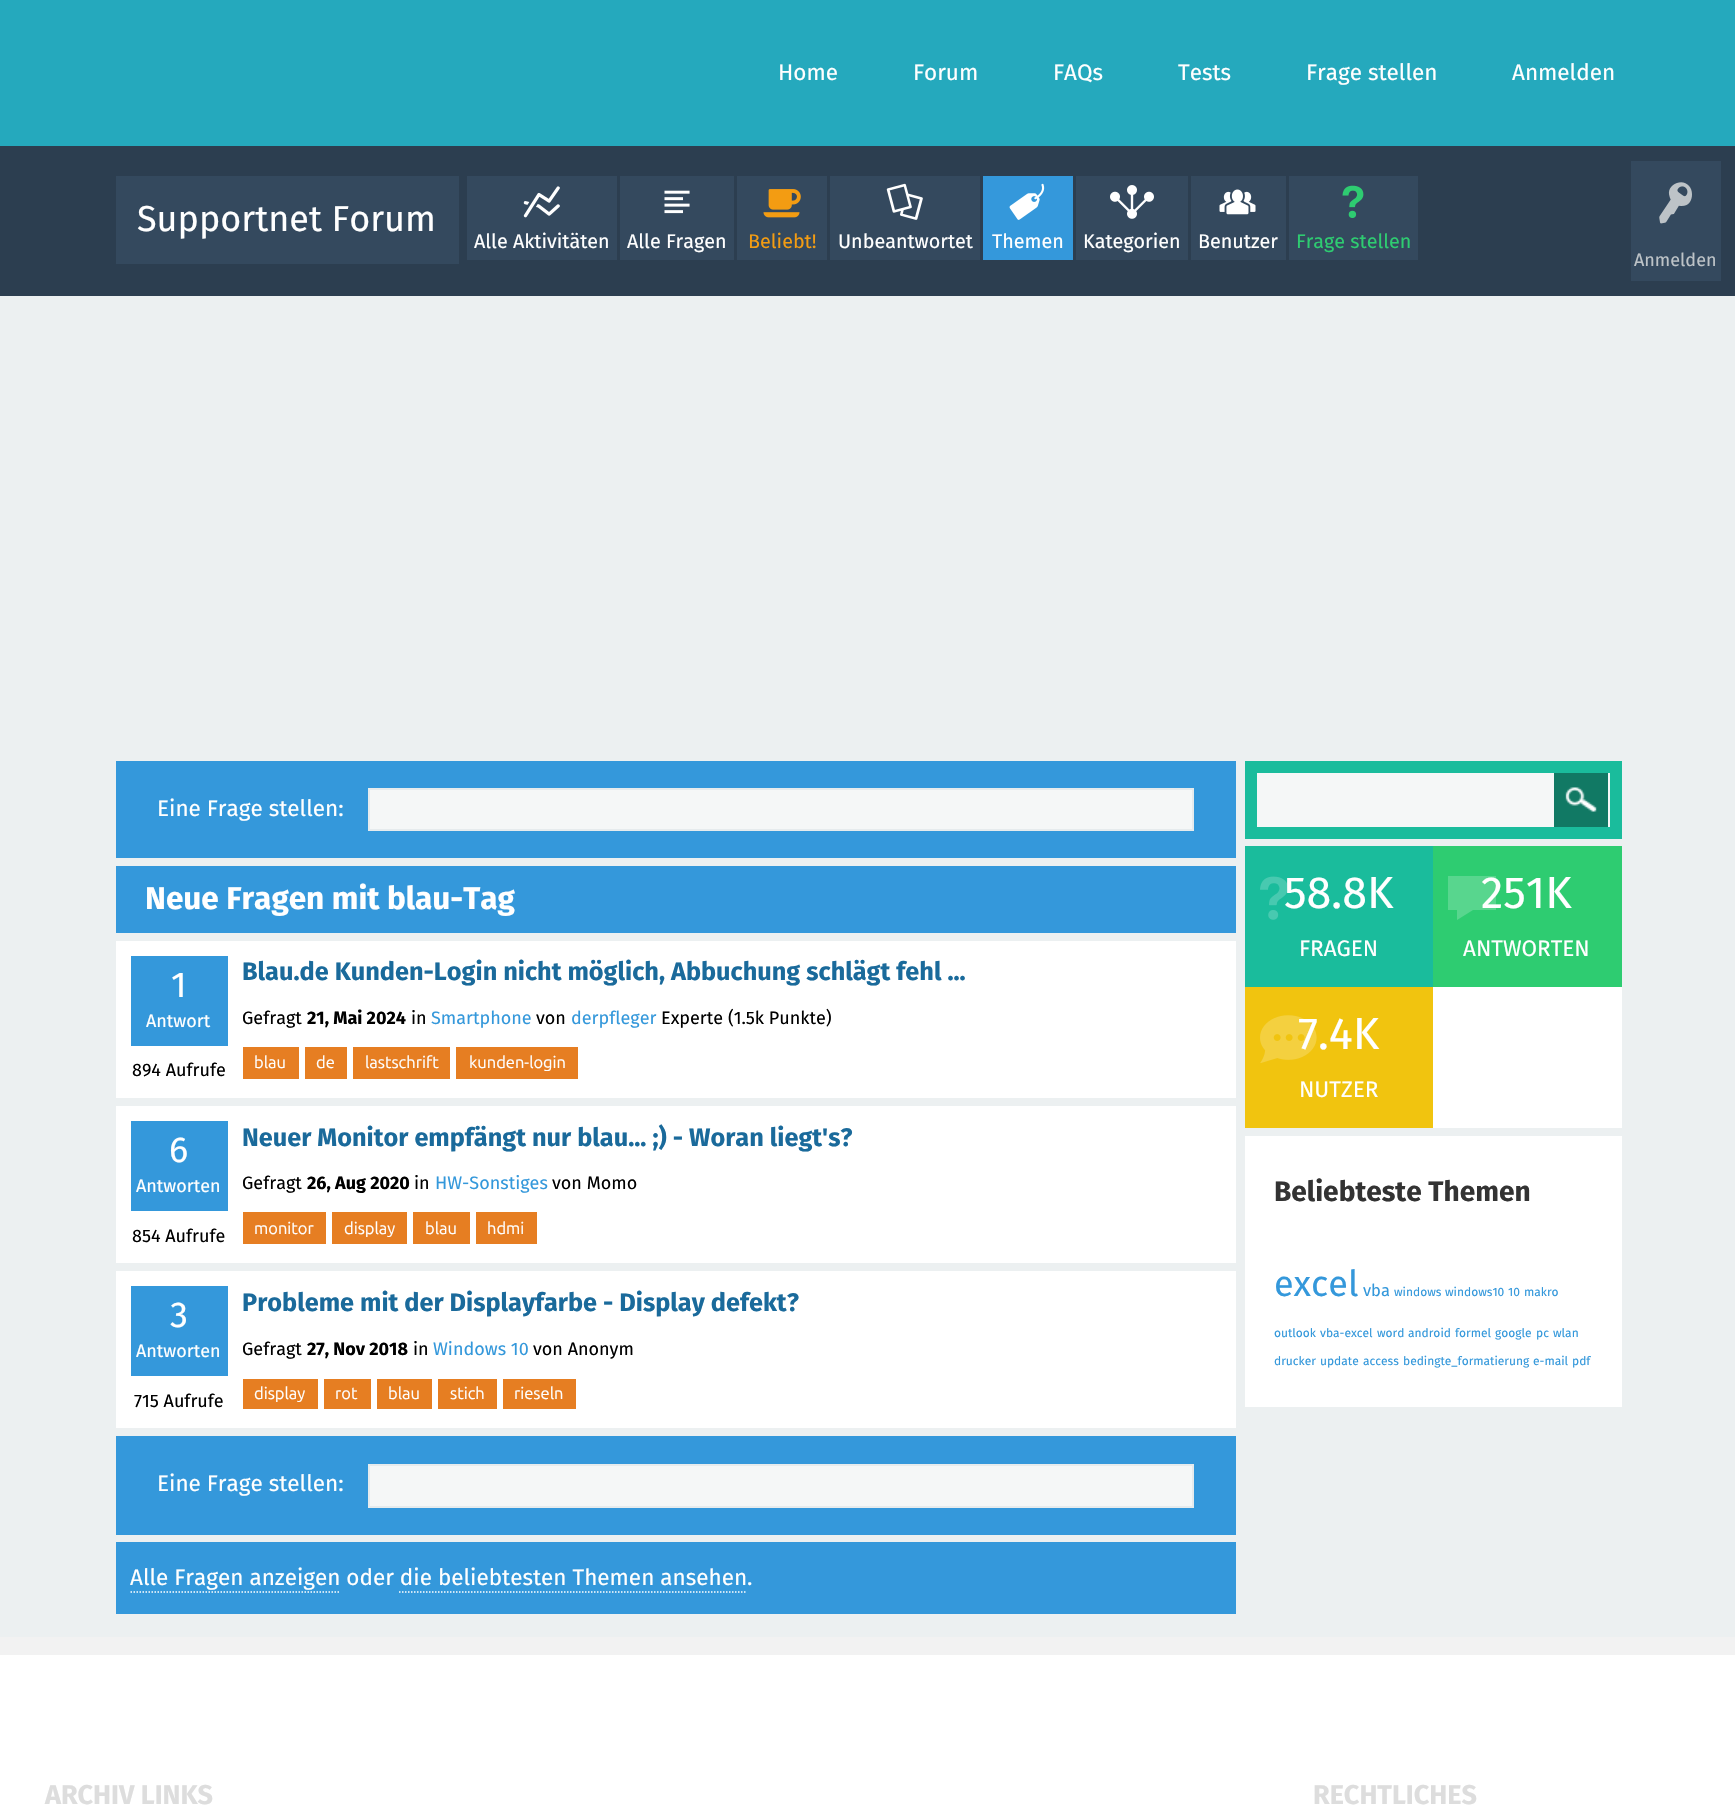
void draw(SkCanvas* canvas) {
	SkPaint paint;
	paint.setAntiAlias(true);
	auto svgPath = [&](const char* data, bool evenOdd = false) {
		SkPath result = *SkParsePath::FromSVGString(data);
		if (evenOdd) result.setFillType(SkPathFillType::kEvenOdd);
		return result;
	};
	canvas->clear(0xffecf0f1);
	paint.setColor(0xff25a9bd);
	canvas->drawRect(SkRect::MakeXYWH(0, 0, 1735, 146), paint);
	SkFont f1(fontMgr->matchFamilyStyle("Fira Sans", SkFontStyle::Normal()), 22.5);
	f1.setSubpixel(true);
	paint.setColor(0xffffffff);
	canvas->drawString("Home", 778, 80, f1, paint);
	canvas->drawString("Forum", 913, 80, f1, paint);
	canvas->drawString("FAQs", 1053, 80, f1, paint);
	canvas->drawString("Tests", 1178, 80, f1, paint);
	canvas->drawString("Frage stellen", 1306, 80, f1, paint);
	canvas->drawString("Anmelden", 1512, 80, f1, paint);
	paint.setColor(0xff2c3e50);
	canvas->drawRect(SkRect::MakeXYWH(0, 146, 1735, 150), paint);
	paint.setColor(0xff34495e);
	canvas->drawRect(SkRect::MakeXYWH(116, 176, 343, 88), paint);
	SkFont f2(fontMgr->matchFamilyStyle("Fira Sans", SkFontStyle::Normal()), 36);
	f2.setSubpixel(true);
	paint.setColor(0xffffffff);
	canvas->drawString("Supportnet Forum", 137, 231, f2, paint);
	paint.setColor(0xff34495e);
	canvas->drawRect(SkRect::MakeXYWH(467, 176, 150, 84), paint);
	canvas->drawImageRect(SkImages::DeferredFromEncodedData(SkData::MakeFromFileName("img1.png")), SkRect::MakeXYWH(523, 186, 37, 32), SkSamplingOptions());
	SkFont f3(fontMgr->matchFamilyStyle("Fira Sans", SkFontStyle::Normal()), 19.75);
	f3.setSubpixel(true);
	paint.setColor(0xffffffff);
	canvas->drawString("Alle Aktivitäten", 474, 248, f3, paint);
	paint.setColor(0xff34495e);
	canvas->drawRect(SkRect::MakeXYWH(620, 176, 114, 84), paint);
	canvas->drawImageRect(SkImages::DeferredFromEncodedData(SkData::MakeFromFileName("img2.png")), SkRect::MakeXYWH(664, 190, 26, 24), SkSamplingOptions());
	paint.setColor(0xffffffff);
	canvas->drawString("Alle Fragen", 627, 248, f3, paint);
	paint.setColor(0xff34495e);
	canvas->drawRect(SkRect::MakeXYWH(737, 176, 90, 84), paint);
	canvas->drawImageRect(SkImages::DeferredFromEncodedData(SkData::MakeFromFileName("img3.png")), SkRect::MakeXYWH(763, 189, 38, 29), SkSamplingOptions());
	paint.setColor(0xfff39c12);
	canvas->drawString("Beliebt!", 748, 248, f3, paint);
	paint.setColor(0xff34495e);
	canvas->drawRect(SkRect::MakeXYWH(830, 176, 150, 84), paint);
	canvas->drawImageRect(SkImages::DeferredFromEncodedData(SkData::MakeFromFileName("img4.png")), SkRect::MakeXYWH(886, 183, 37, 37), SkSamplingOptions());
	paint.setColor(0xffffffff);
	canvas->drawString("Unbeantwortet", 838, 248, f3, paint);
	paint.setColor(0xff3498db);
	canvas->drawRect(SkRect::MakeXYWH(983, 176, 90, 84), paint);
	canvas->drawImageRect(SkImages::DeferredFromEncodedData(SkData::MakeFromFileName("img5.png")), SkRect::MakeXYWH(1009, 183, 36, 37), SkSamplingOptions());
	paint.setColor(0xffffffff);
	canvas->drawString("Themen", 992, 248, f3, paint);
	paint.setColor(0xff34495e);
	canvas->drawRect(SkRect::MakeXYWH(1076, 176, 112, 84), paint);
	canvas->drawImageRect(SkImages::DeferredFromEncodedData(SkData::MakeFromFileName("img6.png")), SkRect::MakeXYWH(1110, 185, 44, 34), SkSamplingOptions());
	paint.setColor(0xffffffff);
	canvas->drawString("Kategorien", 1083, 248, f3, paint);
	paint.setColor(0xff34495e);
	canvas->drawRect(SkRect::MakeXYWH(1191, 176, 95, 84), paint);
	canvas->drawImageRect(SkImages::DeferredFromEncodedData(SkData::MakeFromFileName("img7.png")), SkRect::MakeXYWH(1219, 189, 37, 26), SkSamplingOptions());
	paint.setColor(0xffffffff);
	canvas->drawString("Benutzer", 1198, 248, f3, paint);
	paint.setColor(0xff34495e);
	canvas->drawRect(SkRect::MakeXYWH(1289, 176, 129, 84), paint);
	canvas->drawImageRect(SkImages::DeferredFromEncodedData(SkData::MakeFromFileName("img8.png")), SkRect::MakeXYWH(1342, 185, 22, 33), SkSamplingOptions());
	paint.setColor(0xff2ecc71);
	canvas->drawString("Frage stellen", 1296, 248, f3, paint);
	paint.setColor(0xff34495e);
	canvas->drawRect(SkRect::MakeXYWH(1631, 161, 90, 120), paint);
	canvas->drawImageRect(SkImages::DeferredFromEncodedData(SkData::MakeFromFileName("img9.png")), SkRect::MakeXYWH(1659, 182, 33, 42), SkSamplingOptions());
	SkFont f4(fontMgr->matchFamilyStyle("Fira Sans", SkFontStyle::Normal()), 18);
	f4.setSubpixel(true);
	paint.setColor(0xffbdc3c7);
	canvas->drawString("Anmelden", 1634, 266, f4, paint);
	paint.setColor(0xff3498db);
	canvas->drawRect(SkRect::MakeXYWH(116, 761, 1120, 97), paint);
	paint.setColor(0xffffffff);
	canvas->drawString("Eine Frage stellen:", 157, 816, f1, paint);
	paint.setColor(0xfff5f7f7);
	canvas->drawRect(SkRect::MakeXYWH(369, 789, 824, 41), paint);
	paint.setStroke(true);
	paint.setStrokeWidth(2);
	paint.setColor(0xffe6ebed);
	canvas->drawRect(SkRect::MakeXYWH(369, 789, 824, 41), paint);
	paint.setStroke(false);
	paint.setColor(0xff3498db);
	canvas->drawRect(SkRect::MakeXYWH(116, 866, 1120, 67), paint);
	SkFont f5(fontMgr->matchFamilyStyle("Fira Sans", SkFontStyle::Bold()), 31.5);
	f5.setSubpixel(true);
	paint.setColor(0xffffffff);
	canvas->drawString("Neue Fragen mit blau-Tag", 145, 909, f5, paint);
	canvas->drawRect(SkRect::MakeXYWH(116, 941, 1120, 157), paint);
	paint.setColor(0xff3498db);
	canvas->drawRect(SkRect::MakeXYWH(131, 956, 97, 90), paint);
	paint.setColor(0xffffffff);
	canvas->drawString("1", 171, 997, f2, paint);
	canvas->drawString("Antwort", 146, 1027, f4, paint);
	paint.setColor(0xff000000);
	canvas->drawString("894 Aufrufe", 132, 1076, f4, paint);
	SkFont f6(fontMgr->matchFamilyStyle("Fira Sans", SkFontStyle::Bold()), 25.3);
	f6.setSubpixel(true);
	paint.setColor(0xff1a6a9b);
	canvas->drawString("Blau.de Kunden-Login nicht möglich, Abbuchung schlägt fehl ...", 242, 980, f6, paint);
	paint.setColor(0xff000000);
	canvas->drawString("Gefragt", 242, 1024, f4, paint);
	SkFont f7(fontMgr->matchFamilyStyle("Fira Sans", SkFontStyle::Bold()), 18);
	f7.setSubpixel(true);
	canvas->drawString("21, Mai 2024", 307, 1024, f7, paint);
	canvas->drawString("in", 411, 1024, f4, paint);
	paint.setColor(0xff3498db);
	canvas->drawString("Smartphone", 431, 1024, f4, paint);
	paint.setColor(0xff000000);
	canvas->drawString("von", 536, 1024, f4, paint);
	paint.setColor(0xff3498db);
	canvas->drawString("derpfleger", 571, 1024, f4, paint);
	paint.setColor(0xff000000);
	canvas->drawString("Experte (1.5k Punkte)", 661, 1024, f4, paint);
	paint.setColor(0xffe67e22);
	canvas->drawRect(SkRect::MakeXYWH(243, 1047, 56, 32), paint);
	SkFont f8(fontMgr->matchFamilyStyle("Ubuntu", SkFontStyle::Normal()), 16.5);
	f8.setSubpixel(true);
	paint.setColor(0xffffffff);
	canvas->drawString("blau", 254, 1068, f8, paint);
	paint.setColor(0xffe67e22);
	canvas->drawRect(SkRect::MakeXYWH(305, 1047, 42, 32), paint);
	paint.setColor(0xffffffff);
	canvas->drawString("de", 316, 1068, f8, paint);
	paint.setColor(0xffe67e22);
	canvas->drawRect(SkRect::MakeXYWH(353, 1047, 97, 32), paint);
	paint.setColor(0xffffffff);
	canvas->drawString("lastschrift", 365, 1068, f8, paint);
	paint.setColor(0xffe67e22);
	canvas->drawRect(SkRect::MakeXYWH(456, 1047, 122, 32), paint);
	paint.setColor(0xffffffff);
	canvas->drawString("kunden-login", 469, 1068, f8, paint);
	canvas->drawRect(SkRect::MakeXYWH(116, 1106, 1120, 157), paint);
	paint.setColor(0xff3498db);
	canvas->drawRect(SkRect::MakeXYWH(131, 1121, 97, 90), paint);
	paint.setColor(0xffffffff);
	canvas->drawString("6", 169, 1162, f2, paint);
	canvas->drawString("Antworten", 136, 1192, f4, paint);
	paint.setColor(0xff000000);
	canvas->drawString("854 Aufrufe", 132, 1242, f4, paint);
	paint.setColor(0xff1a6a9b);
	canvas->drawString("Neuer Monitor empfängt nur blau... ;) - Woran liegt's?", 242, 1146, f6, paint);
	paint.setColor(0xff000000);
	canvas->drawString("Gefragt", 242, 1189, f4, paint);
	canvas->drawString("26, Aug 2020", 307, 1189, f7, paint);
	canvas->drawString("in", 414, 1189, f4, paint);
	paint.setColor(0xff3498db);
	canvas->drawString("HW-Sonstiges", 435, 1189, f4, paint);
	paint.setColor(0xff000000);
	canvas->drawString("von Momo", 552, 1189, f4, paint);
	paint.setColor(0xffe67e22);
	canvas->drawRect(SkRect::MakeXYWH(243, 1212, 83, 32), paint);
	paint.setColor(0xffffffff);
	canvas->drawString("monitor", 254, 1234, f8, paint);
	paint.setColor(0xffe67e22);
	canvas->drawRect(SkRect::MakeXYWH(332, 1212, 75, 32), paint);
	paint.setColor(0xffffffff);
	canvas->drawString("display", 344, 1234, f8, paint);
	paint.setColor(0xffe67e22);
	canvas->drawRect(SkRect::MakeXYWH(413, 1212, 57, 32), paint);
	paint.setColor(0xffffffff);
	canvas->drawString("blau", 425, 1234, f8, paint);
	paint.setColor(0xffe67e22);
	canvas->drawRect(SkRect::MakeXYWH(476, 1212, 61, 32), paint);
	paint.setColor(0xffffffff);
	canvas->drawString("hdmi", 487, 1234, f8, paint);
	canvas->drawRect(SkRect::MakeXYWH(116, 1271, 1120, 157), paint);
	paint.setColor(0xff3498db);
	canvas->drawRect(SkRect::MakeXYWH(131, 1286, 97, 90), paint);
	paint.setColor(0xffffffff);
	canvas->drawString("3", 170, 1327, f2, paint);
	canvas->drawString("Antworten", 136, 1357, f4, paint);
	paint.setColor(0xff000000);
	canvas->drawString("715 Aufrufe", 134, 1407, f4, paint);
	paint.setColor(0xff1a6a9b);
	canvas->drawString("Probleme mit der Displayfarbe - Display defekt?", 242, 1311, f6, paint);
	paint.setColor(0xff000000);
	canvas->drawString("Gefragt", 242, 1355, f4, paint);
	canvas->drawString("27, Nov 2018", 307, 1355, f7, paint);
	canvas->drawString("in", 413, 1355, f4, paint);
	paint.setColor(0xff3498db);
	canvas->drawString("Windows 10", 433, 1355, f4, paint);
	paint.setColor(0xff000000);
	canvas->drawString("von Anonym", 533, 1355, f4, paint);
	paint.setColor(0xffe67e22);
	canvas->drawRect(SkRect::MakeXYWH(243, 1379, 75, 30), paint);
	paint.setColor(0xffffffff);
	canvas->drawString("display", 254, 1399, f8, paint);
	paint.setColor(0xffe67e22);
	canvas->drawRect(SkRect::MakeXYWH(324, 1379, 47, 30), paint);
	paint.setColor(0xffffffff);
	canvas->drawString("rot", 335, 1399, f8, paint);
	paint.setColor(0xffe67e22);
	canvas->drawRect(SkRect::MakeXYWH(377, 1379, 55, 30), paint);
	paint.setColor(0xffffffff);
	canvas->drawString("blau", 388, 1399, f8, paint);
	paint.setColor(0xffe67e22);
	canvas->drawRect(SkRect::MakeXYWH(438, 1379, 59, 30), paint);
	paint.setColor(0xffffffff);
	canvas->drawString("stich", 450, 1399, f8, paint);
	paint.setColor(0xffe67e22);
	canvas->drawRect(SkRect::MakeXYWH(503, 1379, 73, 30), paint);
	paint.setColor(0xffffffff);
	canvas->drawString("rieseln", 514, 1399, f8, paint);
	paint.setColor(0xff3498db);
	canvas->drawRect(SkRect::MakeXYWH(116, 1436, 1120, 99), paint);
	paint.setColor(0xffffffff);
	canvas->drawString("Eine Frage stellen:", 157, 1491, f1, paint);
	paint.setColor(0xfff5f7f7);
	canvas->drawRect(SkRect::MakeXYWH(369, 1465, 824, 42), paint);
	paint.setStroke(true);
	paint.setColor(0xffe6ebed);
	canvas->drawRect(SkRect::MakeXYWH(369, 1465, 824, 42), paint);
	paint.setStroke(false);
	paint.setColor(0xff3498db);
	canvas->drawRect(SkRect::MakeXYWH(116, 1542, 1120, 72), paint);
	paint.setColor(0xffffffff);
	canvas->drawString("Alle Fragen anzeigen oder die beliebtesten Themen ansehen.", 130, 1585, f1, paint);
	paint.setStroke(true);
	paint.setStrokeWidth(1.5);
	paint.setPathEffect(SkDashPathEffect::Make({{1.5f, 1.5f}}, 0));
	canvas->drawPath(svgPath("M130.5 1592H340.5"), paint);
	paint.setPathEffect(nullptr);
	paint.setPathEffect(SkDashPathEffect::Make({{1.5f, 1.5f}}, 0));
	canvas->drawPath(svgPath("M399 1592H747"), paint);
	paint.setPathEffect(nullptr);
	paint.setStroke(false);
	paint.setColor(0xff1abc9c);
	canvas->drawRect(SkRect::MakeXYWH(1245, 761, 377, 78), paint);
	paint.setColor(0xfff5f7f7);
	canvas->drawRect(SkRect::MakeXYWH(1257, 773, 353, 54), paint);
	paint.setColor(0xff117964);
	canvas->drawRect(SkRect::MakeXYWH(1554, 773, 54, 54), paint);
	canvas->drawImageRect(SkImages::DeferredFromEncodedData(SkData::MakeFromFileName("img10.png")), SkRect::MakeXYWH(1565, 787, 32, 25), SkSamplingOptions());
	paint.setColor(0xffffffff);
	canvas->drawRect(SkRect::MakeXYWH(1433, 987, 189, 141), paint);
	paint.setColor(0xff1abc9c);
	canvas->drawRect(SkRect::MakeXYWH(1245, 846, 188, 141), paint);
	SkFont f9(fontMgr->matchFamilyStyle("Fira Sans", SkFontStyle::Normal()), 45);
	f9.setSubpixel(true);
	paint.setColor(0xffffffff);
	canvas->drawString("58.8K", 1284, 908, f9, paint);
	canvas->drawImageRect(SkImages::DeferredFromEncodedData(SkData::MakeFromFileName("img11.png")), SkRect::MakeXYWH(1260, 876, 27, 44), SkSamplingOptions());
	canvas->drawString("FRAGEN", 1299, 956, f1, paint);
	paint.setColor(0xff2ecc71);
	canvas->drawRect(SkRect::MakeXYWH(1433, 846, 189, 141), paint);
	paint.setColor(0xffffffff);
	canvas->drawString("251K", 1481, 908, f9, paint);
	paint.setColor(0x33ffffff);
	canvas->drawPath(svgPath("M1448 910V876H1496V910H1473L1457 920V910Z"), paint);
	paint.setColor(0xffffffff);
	canvas->drawString("ANTWORTEN", 1463, 956, f1, paint);
	paint.setColor(0xfff1c40f);
	canvas->drawRect(SkRect::MakeXYWH(1245, 987, 188, 141), paint);
	paint.setColor(0xffffffff);
	canvas->drawString("7.4K", 1298, 1049, f9, paint);
	canvas->drawImageRect(SkImages::DeferredFromEncodedData(SkData::MakeFromFileName("img12.png")), SkRect::MakeXYWH(1260, 1015, 57, 48), SkSamplingOptions());
	canvas->drawString("NUTZER", 1299, 1097, f1, paint);
	canvas->drawRect(SkRect::MakeXYWH(1245, 1136, 377, 271), paint);
	SkFont f10(fontMgr->matchFamilyStyle("Fira Sans", SkFontStyle::Bold()), 28.1);
	f10.setSubpixel(true);
	paint.setColor(0xff333333);
	canvas->drawString("Beliebteste Themen", 1274, 1201, f10, paint);
	paint.setColor(0xff3498db);
	canvas->drawString("excel", 1274, 1296, f2, paint);
	SkFont f11(fontMgr->matchFamilyStyle("Fira Sans", SkFontStyle::Normal()), 16.5);
	f11.setSubpixel(true);
	canvas->drawString("vba", 1363, 1296, f11, paint);
	SkFont f12(fontMgr->matchFamilyStyle("Fira Sans", SkFontStyle::Normal()), 12);
	f12.setSubpixel(true);
	canvas->drawString("windows", 1394, 1296, f12, paint);
	canvas->drawString("windows10", 1445, 1296, f12, paint);
	canvas->drawString("10", 1508, 1296, f12, paint);
	canvas->drawString("makro", 1524, 1296, f12, paint);
	canvas->drawString("outlook", 1274, 1337, f12, paint);
	canvas->drawString("vba-excel", 1320, 1337, f12, paint);
	canvas->drawString("word", 1377, 1337, f12, paint);
	canvas->drawString("android", 1408, 1337, f12, paint);
	canvas->drawString("formel", 1455, 1337, f12, paint);
	canvas->drawString("google", 1495, 1337, f12, paint);
	canvas->drawString("pc", 1536, 1337, f12, paint);
	canvas->drawString("wlan", 1553, 1337, f12, paint);
	canvas->drawString("drucker", 1274, 1365, f12, paint);
	canvas->drawString("update", 1320, 1365, f12, paint);
	canvas->drawString("access", 1363, 1365, f12, paint);
	canvas->drawString("bedingte_formatierung", 1403, 1365, f12, paint);
	canvas->drawString("e-mail", 1533, 1365, f12, paint);
	canvas->drawString("pdf", 1572, 1365, f12, paint);
	paint.setColor(0xffffffff);
	canvas->drawRect(SkRect::MakeXYWH(0, 1655, 1735, 155), paint);
	paint.setColor(0xfff2f2f2);
	canvas->drawRect(SkRect::MakeXYWH(0, 1637, 1735, 18), paint);
	SkFont f13(fontMgr->matchFamilyStyle("Fira Sans", SkFontStyle::Bold()), 27);
	f13.setSubpixel(true);
	paint.setColor(0xffdddddd);
	canvas->drawString("ARCHIV LINKS", 45, 1804, f13, paint);
	canvas->drawString("RECHTLICHES", 1313, 1804, f13, paint);
}
